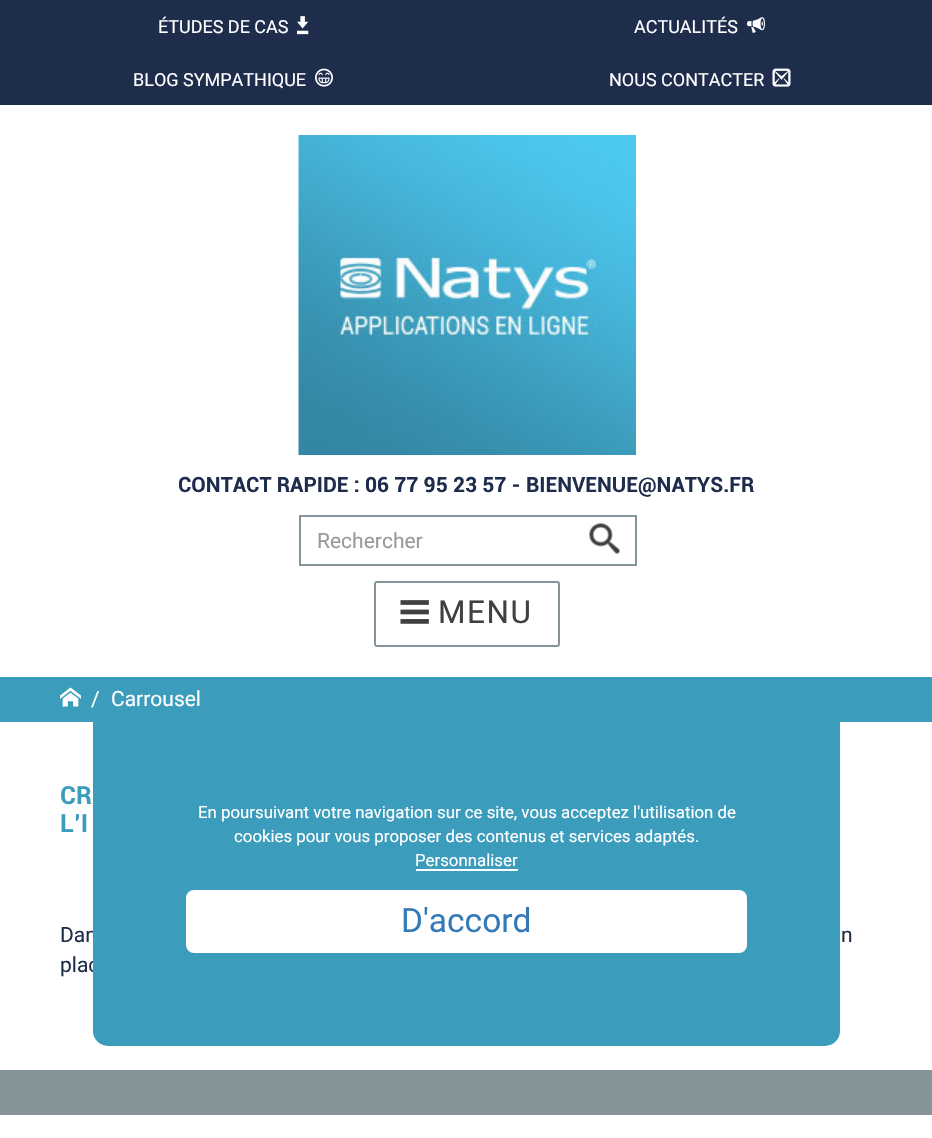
void draw(SkCanvas* canvas) {
	SkPaint paint;
	paint.setAntiAlias(true);
	auto spacedText = [&](const char* s, float x, float y, const SkFont& font, const SkPaint& ink, float letter, float word) {
		std::vector<SkGlyphID> glyphs(font.countText(s, strlen(s), SkTextEncoding::kUTF8));
		std::vector<float> xs(glyphs.size());
		font.textToGlyphs(s, strlen(s), SkTextEncoding::kUTF8, glyphs);
		font.getXPos(glyphs, xs, x);
		float extra = 0;
		for (size_t i = 0; i < glyphs.size(); i++) {
			xs[i] += extra;
			extra += letter + word * (glyphs[i] == font.unicharToGlyph(' '));
		}
		canvas->drawTextBlob(SkTextBlob::MakeFromPosHGlyphs(glyphs, xs, y, font), 0, 0, ink);
	};
	canvas->clear(0xff859499);
	paint.setColor(0xffffffff);
	canvas->drawRect(SkRect::MakeXYWH(0, 105, 932, 572), paint);
	paint.setColor(0xff1e2d4c);
	canvas->drawRect(SkRect::MakeXYWH(0, 0, 932, 53), paint);
	SkFont f1(fontMgr->matchFamilyStyle("Roboto", SkFontStyle::Normal()), 18);
	f1.setSubpixel(true);
	paint.setColor(0xffffffff);
	canvas->drawString("ÉTUDES DE CAS", 158, 33, f1, paint);
	canvas->drawImageRect(SkImages::DeferredFromEncodedData(SkData::MakeFromFileName("img1.png")), SkRect::MakeXYWH(297, 16, 12, 19), SkSamplingOptions());
	canvas->drawString("ACTUALITÉS", 634, 33, f1, paint);
	canvas->drawImageRect(SkImages::DeferredFromEncodedData(SkData::MakeFromFileName("img2.png")), SkRect::MakeXYWH(747, 17, 18, 16), SkSamplingOptions());
	paint.setColor(0xff1e2d4c);
	canvas->drawRect(SkRect::MakeXYWH(0, 53, 932, 52), paint);
	paint.setColor(0xffffffff);
	canvas->drawString("BLOG SYMPATHIQUE", 133, 86, f1, paint);
	canvas->drawImageRect(SkImages::DeferredFromEncodedData(SkData::MakeFromFileName("img3.png")), SkRect::MakeXYWH(315, 68, 18, 19), SkSamplingOptions());
	canvas->drawString("NOUS CONTACTER", 609, 86, f1, paint);
	canvas->drawImageRect(SkImages::DeferredFromEncodedData(SkData::MakeFromFileName("img4.png")), SkRect::MakeXYWH(772, 68, 19, 19), SkSamplingOptions());
	canvas->drawImageRect(SkImages::DeferredFromEncodedData(SkData::MakeFromFileName("img5.png")), SkRect::MakeXYWH(298, 135, 338, 320), SkSamplingOptions());
	SkFont f2(fontMgr->matchFamilyStyle("Roboto", SkFontStyle::Bold()), 21);
	f2.setSubpixel(true);
	paint.setColor(0xff1e2d4c);
	canvas->drawString("CONTACT RAPIDE : 06 77 95 23 57 - BIENVENUE@NATYS.FR", 178, 492, f2, paint);
	paint.setColor(0xff859499);
	canvas->drawRect(SkRect::MakeXYWH(299, 515, 337, 2), paint);
	canvas->drawRect(SkRect::MakeXYWH(299, 564, 277, 2), paint);
	canvas->drawRect(SkRect::MakeXYWH(299, 515, 2, 51), paint);
	SkFont f3(fontMgr->matchFamilyStyle("Roboto", SkFontStyle::Normal()), 21);
	f3.setSubpixel(true);
	paint.setColor(0xff999999);
	canvas->drawString("Rechercher", 317, 548, f3, paint);
	canvas->drawImageRect(SkImages::DeferredFromEncodedData(SkData::MakeFromFileName("img6.png")), SkRect::MakeXYWH(589, 523, 31, 31), SkSamplingOptions());
	paint.setColor(0xff859499);
	canvas->drawRect(SkRect::MakeXYWH(635, 515, 2, 51), paint);
	canvas->drawRect(SkRect::MakeXYWH(576, 564, 60, 2), paint);
	paint.setStroke(true);
	paint.setStrokeWidth(2);
	canvas->drawRoundRect(SkRect::MakeXYWH(375, 582, 184, 64), 2, 2, paint);
	canvas->drawImageRect(SkImages::DeferredFromEncodedData(SkData::MakeFromFileName("img7.png")), SkRect::MakeXYWH(400, 600, 29, 24), SkSamplingOptions());
	SkFont f4(fontMgr->matchFamilyStyle("Roboto", SkFontStyle::Normal()), 31.5);
	f4.setSubpixel(true);
	paint.setStroke(false);
	paint.setColor(0xff414040);
	spacedText("MENU", 438, 623, f4, paint, 1.5, 0);
	paint.setColor(0xff3b9cbc);
	canvas->drawRect(SkRect::MakeXYWH(0, 677, 932, 45), paint);
	canvas->drawImageRect(SkImages::DeferredFromEncodedData(SkData::MakeFromFileName("img8.png")), SkRect::MakeXYWH(60, 687, 21, 20), SkSamplingOptions());
	paint.setColor(0xffffffff);
	canvas->drawString("/", 91, 706, f3, paint);
	canvas->drawString("Carrousel", 111, 706, f3, paint);
	canvas->drawRect(SkRect::MakeXYWH(0, 722, 932, 348), paint);
	SkFont f5(fontMgr->matchFamilyStyle("Roboto", SkFontStyle::Bold()), 25);
	f5.setSubpixel(true);
	paint.setColor(0xff3b9cbc);
	canvas->drawString("CR", 60, 804, f5, paint);
	canvas->drawString("L’I", 60, 832, f5, paint);
	paint.setColor(0xff1e2d4c);
	canvas->drawString("Dan", 60, 942, f3, paint);
	canvas->drawString("n", 841, 942, f3, paint);
	canvas->drawString("plac", 60, 972, f3, paint);
	paint.setColor(0xffffffff);
	canvas->drawRect(SkRect::MakeXYWH(0, 1115, 932, 23), paint);
	paint.setColor(0xff3b9cbc);
	canvas->drawRoundRect(SkRect::MakeXYWH(93, 708, 747, 338), 15, 15, paint);
	SkFont f6(fontMgr->matchFamilyStyle("Roboto", SkFontStyle::Normal()), 16.8);
	f6.setSubpixel(true);
	paint.setColor(0xffffffff);
	canvas->drawString("En poursuivant votre navigation sur ce site, vous acceptez l'utilisation de", 198, 818, f6, paint);
	canvas->drawString("cookies pour vous proposer des contenus et services adaptés.", 234, 842, f6, paint);
	canvas->drawString("Personnaliser", 415, 866, f6, paint);
	canvas->drawRect(SkRect::MakeXYWH(416, 869, 102, 2), paint);
	canvas->drawRoundRect(SkRect::MakeXYWH(186, 890, 561, 63), 8, 8, paint);
	SkFont f7(fontMgr->matchFamilyStyle("Roboto", SkFontStyle::Normal()), 33.5);
	f7.setSubpixel(true);
	paint.setColor(0xff337ab7);
	canvas->drawString("D'accord", 401, 932, f7, paint);
}
